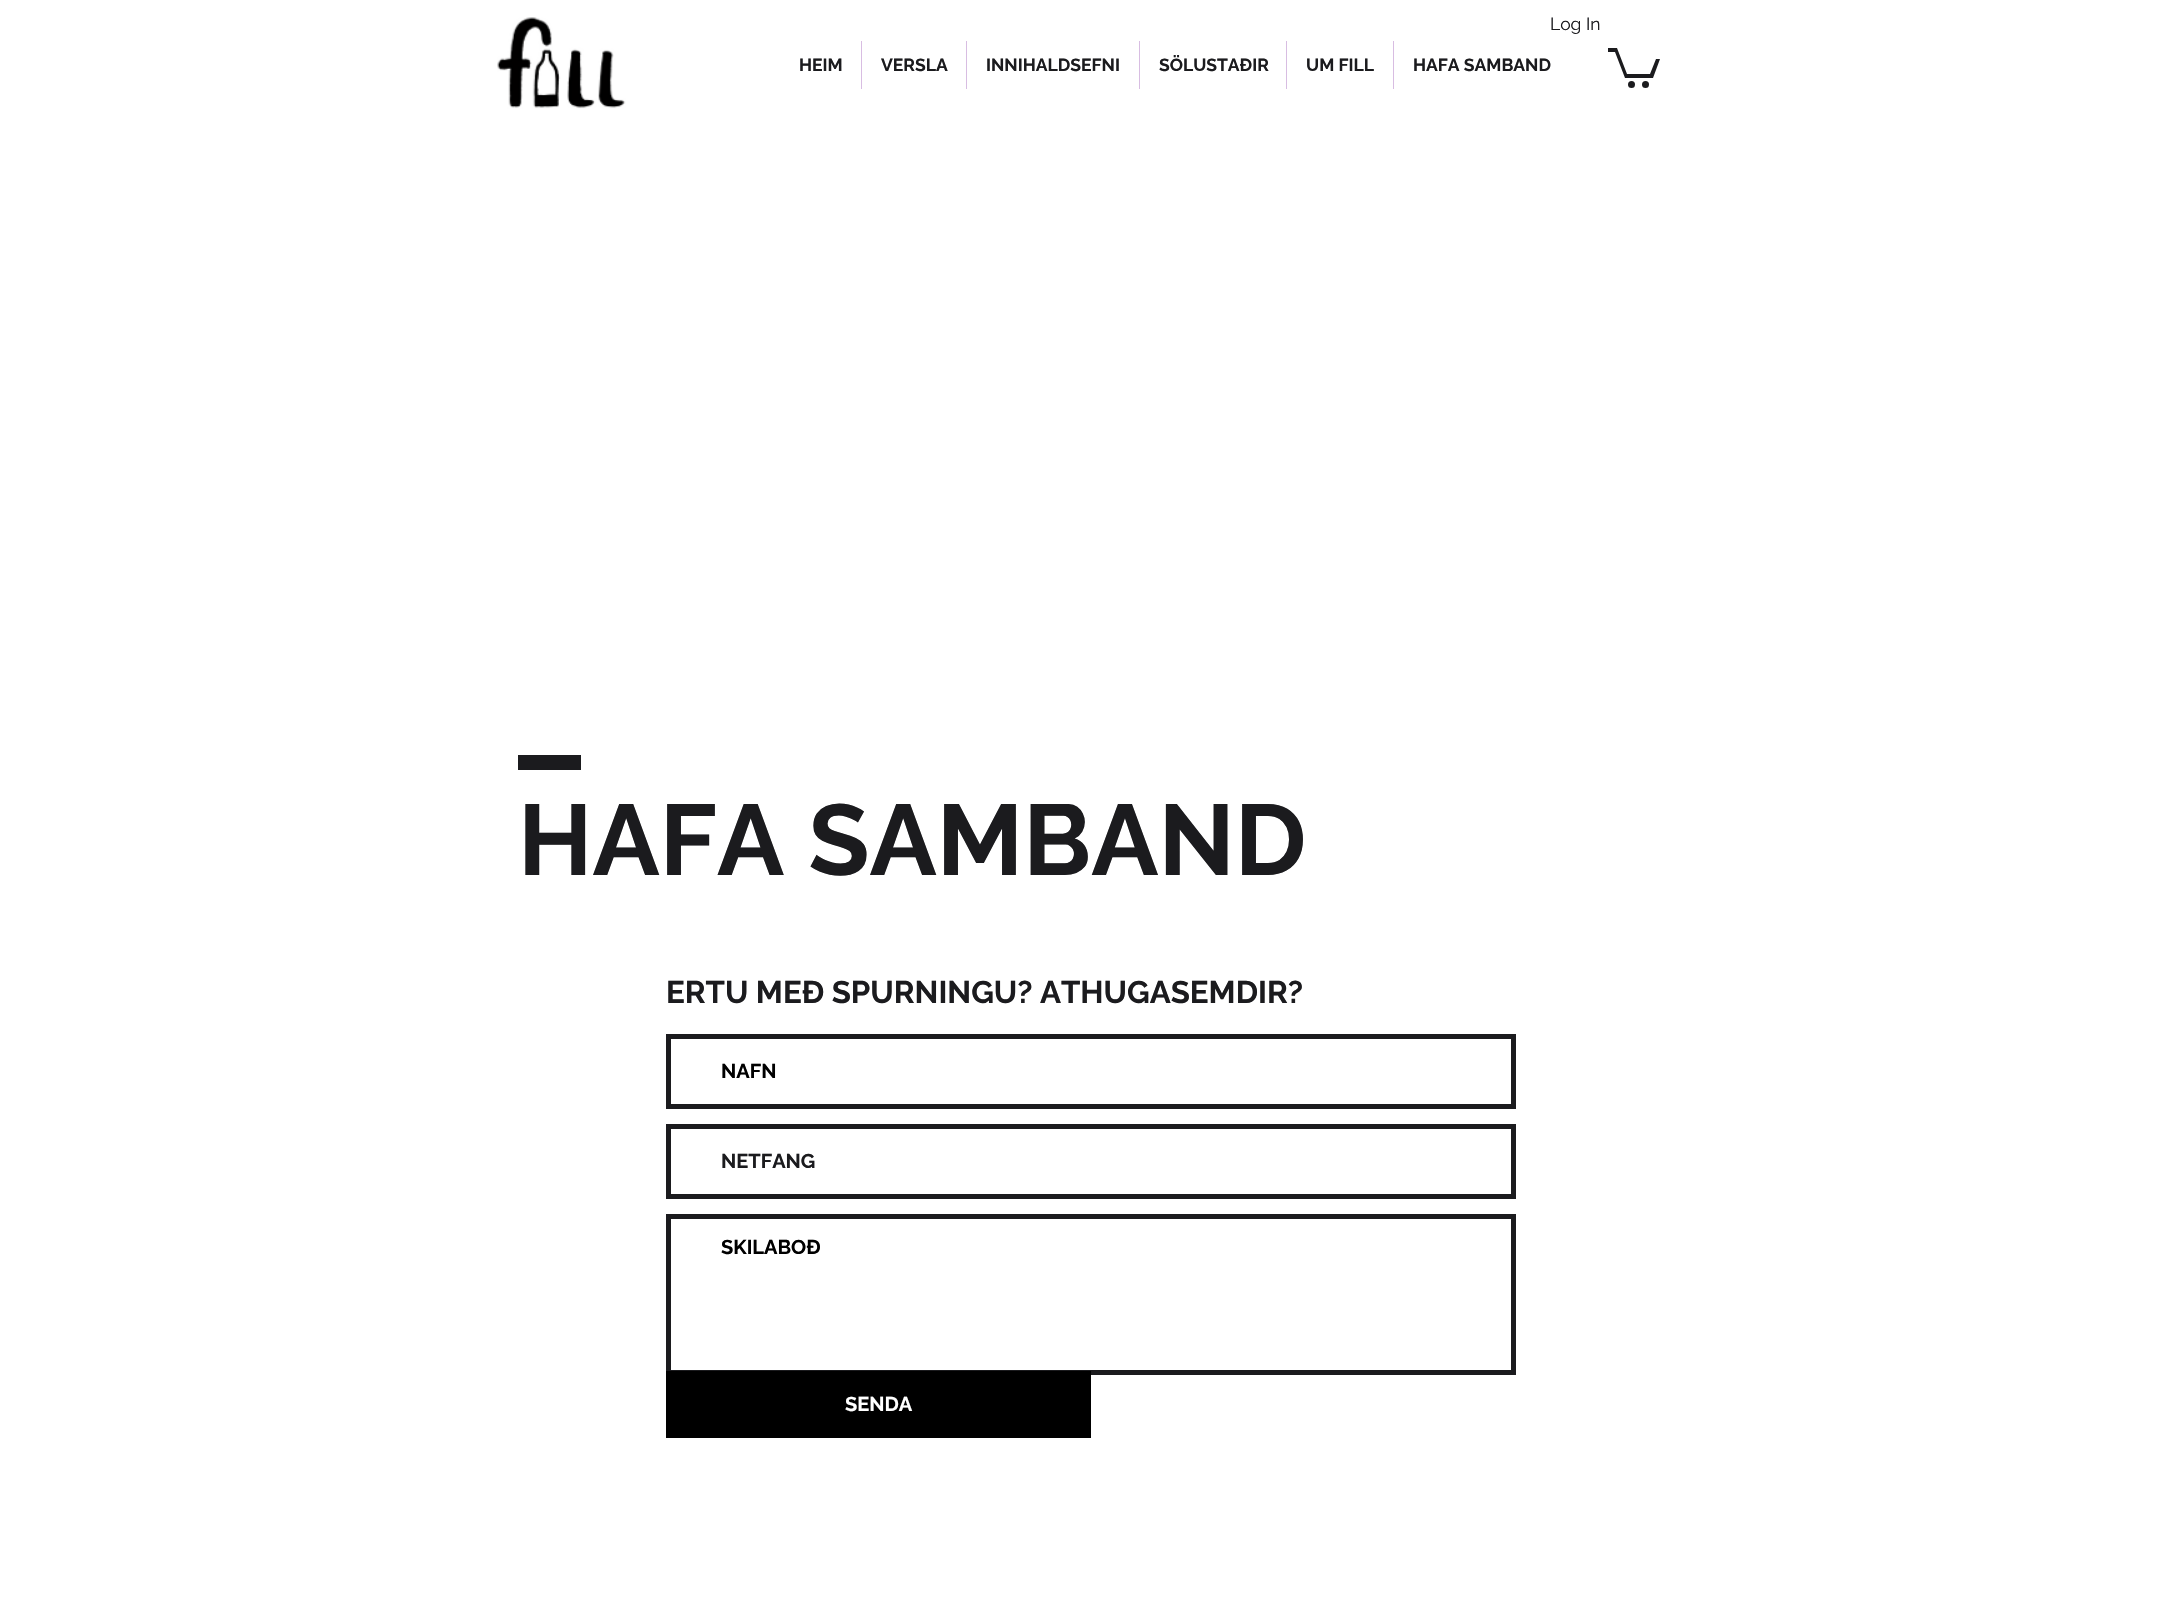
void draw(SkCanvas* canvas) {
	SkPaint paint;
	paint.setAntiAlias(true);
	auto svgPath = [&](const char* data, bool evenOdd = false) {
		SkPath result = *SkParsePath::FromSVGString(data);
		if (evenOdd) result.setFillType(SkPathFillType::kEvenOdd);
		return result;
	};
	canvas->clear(0xffffffff);
	canvas->drawImageRect(SkImages::DeferredFromEncodedData(SkData::MakeFromFileName("img1.png")), SkRect::MakeXYWH(497, 17, 129, 92), SkSamplingOptions());
	SkFont f1(fontMgr->matchFamilyStyle("Raleway", SkFontStyle::Normal()), 17.5);
	f1.setSubpixel(true);
	paint.setColor(0xff1b1b1e);
	canvas->drawString("Log In", 1550, 30, f1, paint);
	SkFont f2(fontMgr->matchFamilyStyle("Raleway", SkFontStyle::Bold()), 17.5);
	f2.setSubpixel(true);
	canvas->drawString("HEIM", 799, 71, f2, paint);
	paint.setColor(0xffd8bde2);
	canvas->drawRect(SkRect::MakeXYWH(861, 41, 1, 48), paint);
	paint.setColor(0xff1b1b1e);
	canvas->drawString("VERSLA", 881, 71, f2, paint);
	paint.setColor(0xffd8bde2);
	canvas->drawRect(SkRect::MakeXYWH(966, 41, 1, 48), paint);
	paint.setColor(0xff1b1b1e);
	canvas->drawString("INNIHALDSEFNI", 986, 71, f2, paint);
	paint.setColor(0xffd8bde2);
	canvas->drawRect(SkRect::MakeXYWH(1139, 41, 1, 48), paint);
	paint.setColor(0xff1b1b1e);
	canvas->drawString("SÖLUSTAÐIR", 1159, 71, f2, paint);
	paint.setColor(0xffd8bde2);
	canvas->drawRect(SkRect::MakeXYWH(1286, 41, 1, 48), paint);
	paint.setColor(0xff1b1b1e);
	canvas->drawString("UM FILL", 1306, 71, f2, paint);
	paint.setColor(0xffd8bde2);
	canvas->drawRect(SkRect::MakeXYWH(1393, 41, 1, 48), paint);
	paint.setColor(0xff1b1b1e);
	canvas->drawString("HAFA SAMBAND", 1413, 71, f2, paint);
	canvas->drawPath(svgPath("M1660 59L1653 78H1625L1615 52H1608V48H1617L1627 74H1650L1656 59"), paint);
	canvas->drawCircle(1645.5, 84.5, 3.5, paint);
	canvas->drawCircle(1631.5, 84.5, 3.5, paint);
	canvas->drawRect(SkRect::MakeXYWH(518, 755, 63, 15), paint);
	SkFont f3(fontMgr->matchFamilyStyle("Raleway", SkFontStyle::Bold()), 100);
	f3.setSubpixel(true);
	canvas->drawString("HAFA SAMBAND", 518, 875, f3, paint);
	SkFont f4(fontMgr->matchFamilyStyle("Raleway", SkFontStyle::Bold()), 31.25);
	f4.setSubpixel(true);
	canvas->drawString("ERTU MEÐ SPURNINGU? ATHUGASEMDIR?", 666, 1003, f4, paint);
	paint.setStroke(true);
	paint.setStrokeWidth(5);
	canvas->drawRect(SkRect::MakeXYWH(668.5, 1036.5, 845, 70), paint);
	SkFont f5(fontMgr->matchFamilyStyle("Raleway", SkFontStyle::Bold()), 20);
	f5.setSubpixel(true);
	paint.setStroke(false);
	paint.setColor(0xff000000);
	canvas->drawString("NAFN", 721, 1078, f5, paint);
	paint.setStroke(true);
	paint.setColor(0xff1b1b1e);
	canvas->drawRect(SkRect::MakeXYWH(668.5, 1126.5, 845, 70), paint);
	paint.setStroke(false);
	canvas->drawString("NETFANG", 721, 1168, f5, paint);
	paint.setStroke(true);
	canvas->drawRect(SkRect::MakeXYWH(668.5, 1216.5, 845, 156), paint);
	paint.setStroke(false);
	paint.setColor(0xff000000);
	canvas->drawString("SKILABOÐ", 721, 1254, f5, paint);
	canvas->drawRect(SkRect::MakeXYWH(666, 1371, 425, 67), paint);
	paint.setColor(0xffffffff);
	canvas->drawString("SENDA", 845, 1411, f5, paint);
}
